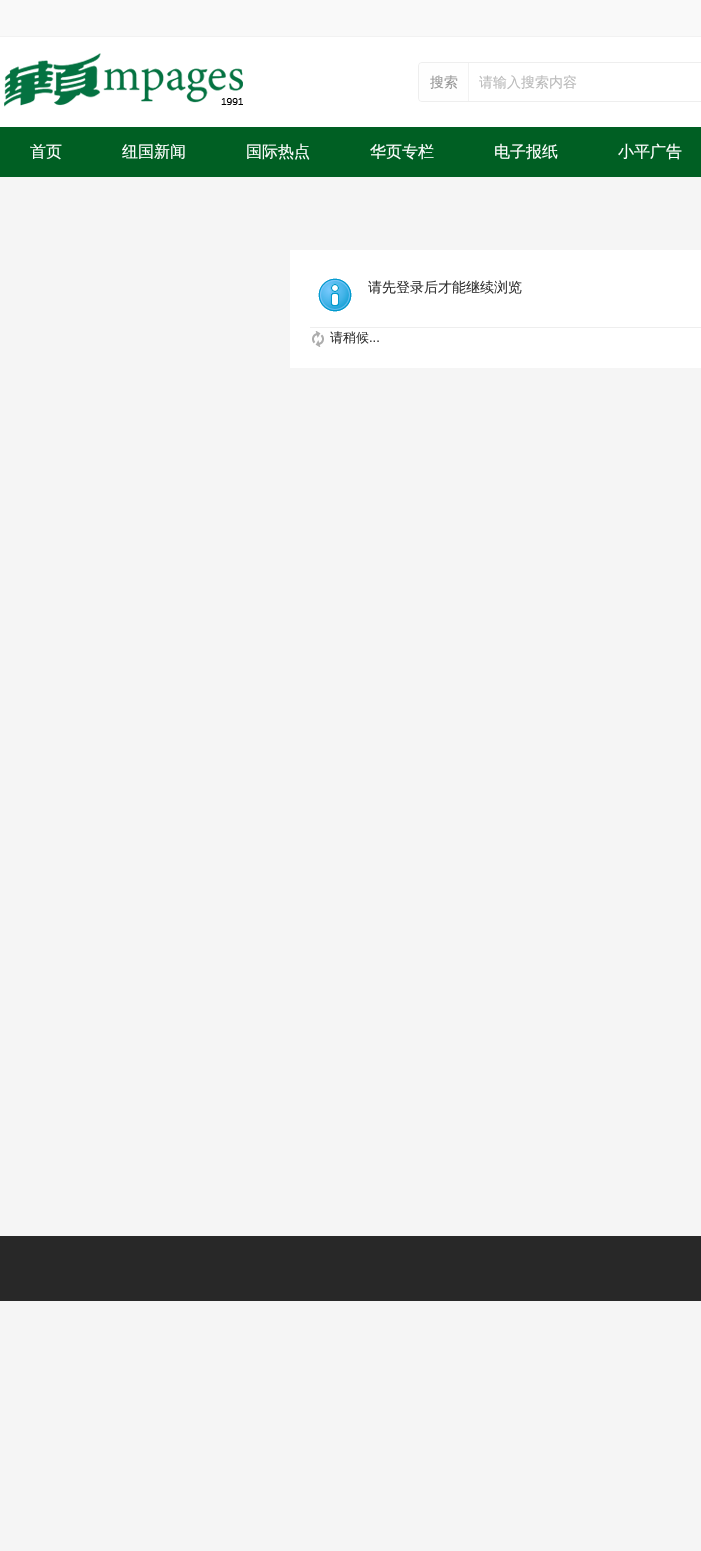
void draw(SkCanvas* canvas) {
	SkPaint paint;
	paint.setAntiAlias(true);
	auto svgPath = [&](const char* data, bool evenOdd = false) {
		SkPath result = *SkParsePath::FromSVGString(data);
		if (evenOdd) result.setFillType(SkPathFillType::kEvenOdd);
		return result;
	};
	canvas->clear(0xfff5f5f5);
	paint.setColor(0xfff9f9f9);
	canvas->drawRect(SkRect::MakeXYWH(0, 0, 701, 36), paint);
	paint.setColor(0xfff2f2f2);
	canvas->drawRect(SkRect::MakeXYWH(0, 36, 701, 1), paint);
	paint.setColor(0xffffffff);
	canvas->drawRect(SkRect::MakeXYWH(0, 37, 701, 90), paint);
	canvas->drawImageRect(SkImages::DeferredFromEncodedData(SkData::MakeFromFileName("img1.png")), SkRect::MakeXYWH(4, 53, 239, 54), SkSamplingOptions());
	paint.setStroke(true);
	paint.setStrokeWidth(1);
	paint.setColor(0xffeeeeee);
	canvas->drawRoundRect(SkRect::MakeXYWH(418.5, 62.5, 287, 39), 3.5, 3.5, paint);
	paint.setStroke(false);
	paint.setColor(0xfffefefe);
	canvas->drawPath(svgPath("M422 63H469V101H422C420.5 101 419 99.5 419 98V66C419 64.5 420.5 63 422 63Z"), paint);
	paint.setColor(0xfff2f2f2);
	canvas->drawRect(SkRect::MakeXYWH(468, 63, 1, 38), paint);
	SkFont f1(fontMgr->matchFamilyStyle("WenQuanYi Zen Hei", SkFontStyle(500, SkFontStyle::kNormal_Width, SkFontStyle::kUpright_Slant)), 14);
	f1.setSubpixel(true);
	paint.setColor(0xff999999);
	canvas->drawString("搜索", 430, 87, f1, paint);
	paint.setColor(0xffbbbbbb);
	canvas->drawString("请输入搜索内容", 479, 87, f1, paint);
	paint.setColor(0xff005f23);
	canvas->drawRect(SkRect::MakeXYWH(0, 127, 701, 50), paint);
	SkFont f2(fontMgr->matchFamilyStyle("WenQuanYi Zen Hei", SkFontStyle(500, SkFontStyle::kNormal_Width, SkFontStyle::kUpright_Slant)), 16);
	f2.setSubpixel(true);
	paint.setColor(0xffffffff);
	canvas->drawString("首页", 30, 157, f2, paint);
	canvas->drawString("纽国新闻", 122, 157, f2, paint);
	canvas->drawString("国际热点", 246, 157, f2, paint);
	canvas->drawString("华页专栏", 370, 157, f2, paint);
	canvas->drawString("电子报纸", 494, 157, f2, paint);
	canvas->drawString("小平广告", 618, 157, f2, paint);
	canvas->drawRect(SkRect::MakeXYWH(290, 250, 411, 118), paint);
	canvas->drawImageRect(SkImages::DeferredFromEncodedData(SkData::MakeFromFileName("img2.png")), SkRect::MakeXYWH(318, 278, 34, 34), SkSamplingOptions());
	paint.setColor(0xff333333);
	canvas->drawString("请先登录后才能继续浏览", 368, 292, f1, paint);
	paint.setColor(0xffeeeeee);
	canvas->drawRect(SkRect::MakeXYWH(310, 327, 391, 1), paint);
	canvas->drawImageRect(SkImages::DeferredFromEncodedData(SkData::MakeFromFileName("img3.png")), SkRect::MakeXYWH(312, 331, 12, 16), SkSamplingOptions());
	SkFont f3(fontMgr->matchFamilyStyle("WenQuanYi Zen Hei", SkFontStyle(500, SkFontStyle::kNormal_Width, SkFontStyle::kUpright_Slant)), 13);
	f3.setSubpixel(true);
	paint.setColor(0xff333333);
	canvas->drawString("请稍候", 330, 342, f3, paint);
	SkFont f4(fontMgr->matchFamilyStyle("Liberation Sans", SkFontStyle::Normal()), 13);
	f4.setSubpixel(true);
	canvas->drawString("...", 369, 342, f4, paint);
	paint.setColor(0xff282828);
	canvas->drawRect(SkRect::MakeXYWH(0, 1236, 701, 65), paint);
}
